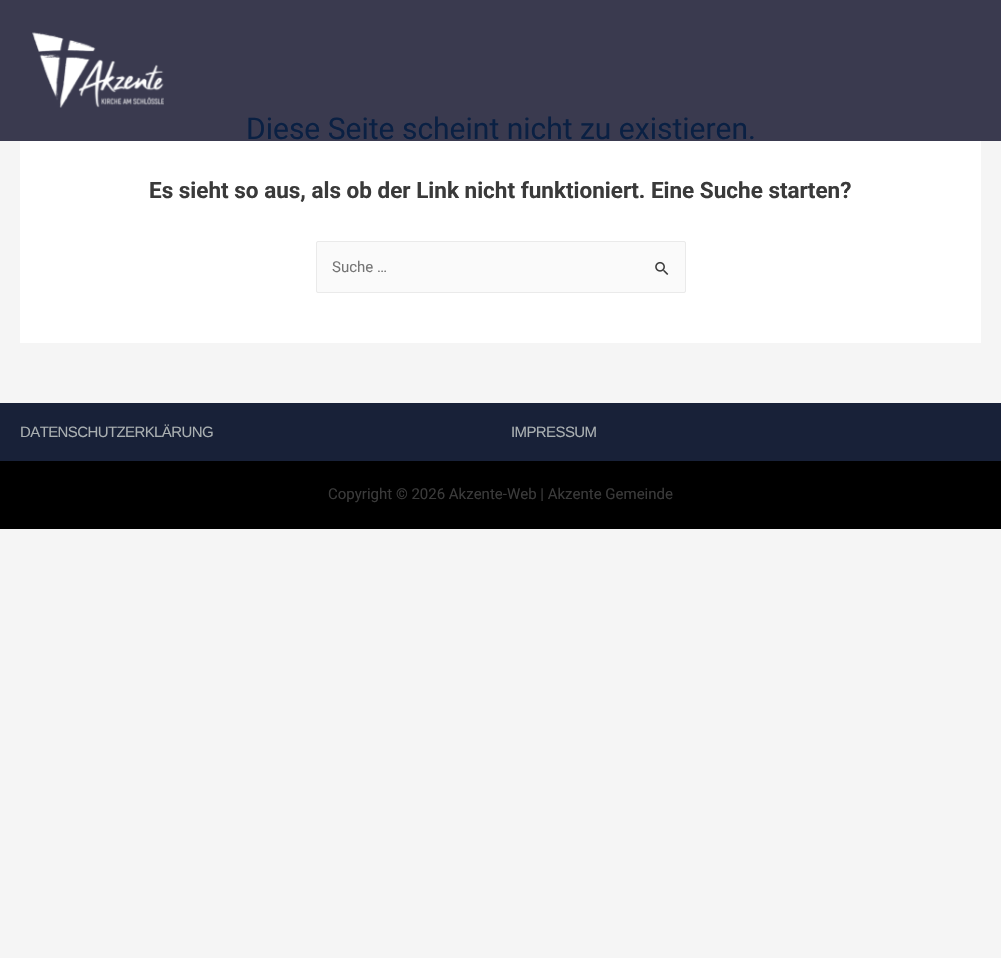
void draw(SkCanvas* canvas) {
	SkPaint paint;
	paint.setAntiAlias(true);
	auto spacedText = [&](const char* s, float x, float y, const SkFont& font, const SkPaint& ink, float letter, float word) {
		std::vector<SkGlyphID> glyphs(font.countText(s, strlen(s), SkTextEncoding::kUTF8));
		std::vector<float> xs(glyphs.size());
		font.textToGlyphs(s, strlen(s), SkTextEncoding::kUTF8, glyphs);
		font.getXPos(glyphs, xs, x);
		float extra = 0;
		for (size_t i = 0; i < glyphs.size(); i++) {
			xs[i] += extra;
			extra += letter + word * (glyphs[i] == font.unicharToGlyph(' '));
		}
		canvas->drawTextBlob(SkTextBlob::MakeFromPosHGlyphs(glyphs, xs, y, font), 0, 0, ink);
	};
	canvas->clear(0xfff5f5f5);
	paint.setColor(0xff3a3a4f);
	canvas->drawRect(SkRect::MakeXYWH(0, 0, 1001, 141), paint);
	canvas->drawImageRect(SkImages::DeferredFromEncodedData(SkData::MakeFromFileName("img1.png")), SkRect::MakeXYWH(32, 32, 132, 76), SkSamplingOptions());
	paint.setColor(0xffffffff);
	canvas->drawRect(SkRect::MakeXYWH(20, 141, 961, 202), paint);
	SkFont f1(fontMgr->matchFamilyStyle("Roboto", SkFontStyle::Normal()), 30);
	f1.setSubpixel(true);
	paint.setColor(0xff0a2043);
	canvas->drawString("Diese Seite scheint nicht zu existieren.", 246, 139, f1, paint);
	SkFont f2(fontMgr->matchFamilyStyle("Roboto", SkFontStyle::Bold()), 22.5);
	f2.setSubpixel(true);
	paint.setColor(0xff3a3a3a);
	canvas->drawString("Es sieht so aus, als ob der Link nicht funktioniert. Eine Suche starten?", 149, 198, f2, paint);
	paint.setColor(0xfffafafa);
	canvas->drawRoundRect(SkRect::MakeXYWH(316.5, 241.5, 369, 51), 1.5, 1.5, paint);
	paint.setStroke(true);
	paint.setStrokeWidth(1);
	paint.setColor(0xffeaeaea);
	canvas->drawRoundRect(SkRect::MakeXYWH(316.5, 241.5, 369, 51), 1.5, 1.5, paint);
	SkFont f3(fontMgr->matchFamilyStyle("Roboto", SkFontStyle::Normal()), 15);
	f3.setSubpixel(true);
	paint.setStroke(false);
	paint.setColor(0xff757575);
	canvas->drawString("Suche …", 332, 272, f3, paint);
	canvas->drawImageRect(SkImages::DeferredFromEncodedData(SkData::MakeFromFileName("img2.png")), SkRect::MakeXYWH(655, 261, 14, 14), SkSamplingOptions());
	paint.setColor(0xff182138);
	canvas->drawRect(SkRect::MakeXYWH(0, 403, 1001, 58), paint);
	SkFont f4(fontMgr->matchFamilyStyle("Liberation Sans", SkFontStyle::Normal()), 15);
	f4.setSubpixel(true);
	paint.setColor(0xffa9afb1);
	spacedText("DATENSCHUTZERKLÄRUNG", 20, 437, f4, paint, -0.6, 0);
	spacedText("IMPRESSUM", 511, 437, f4, paint, -0.6, 0);
	paint.setColor(0xff000000);
	canvas->drawRect(SkRect::MakeXYWH(0, 461, 1001, 68), paint);
	paint.setColor(0xff3a3a3a);
	canvas->drawString("Copyright © 2026 Akzente-Web | Akzente Gemeinde", 328, 499, f3, paint);
}
